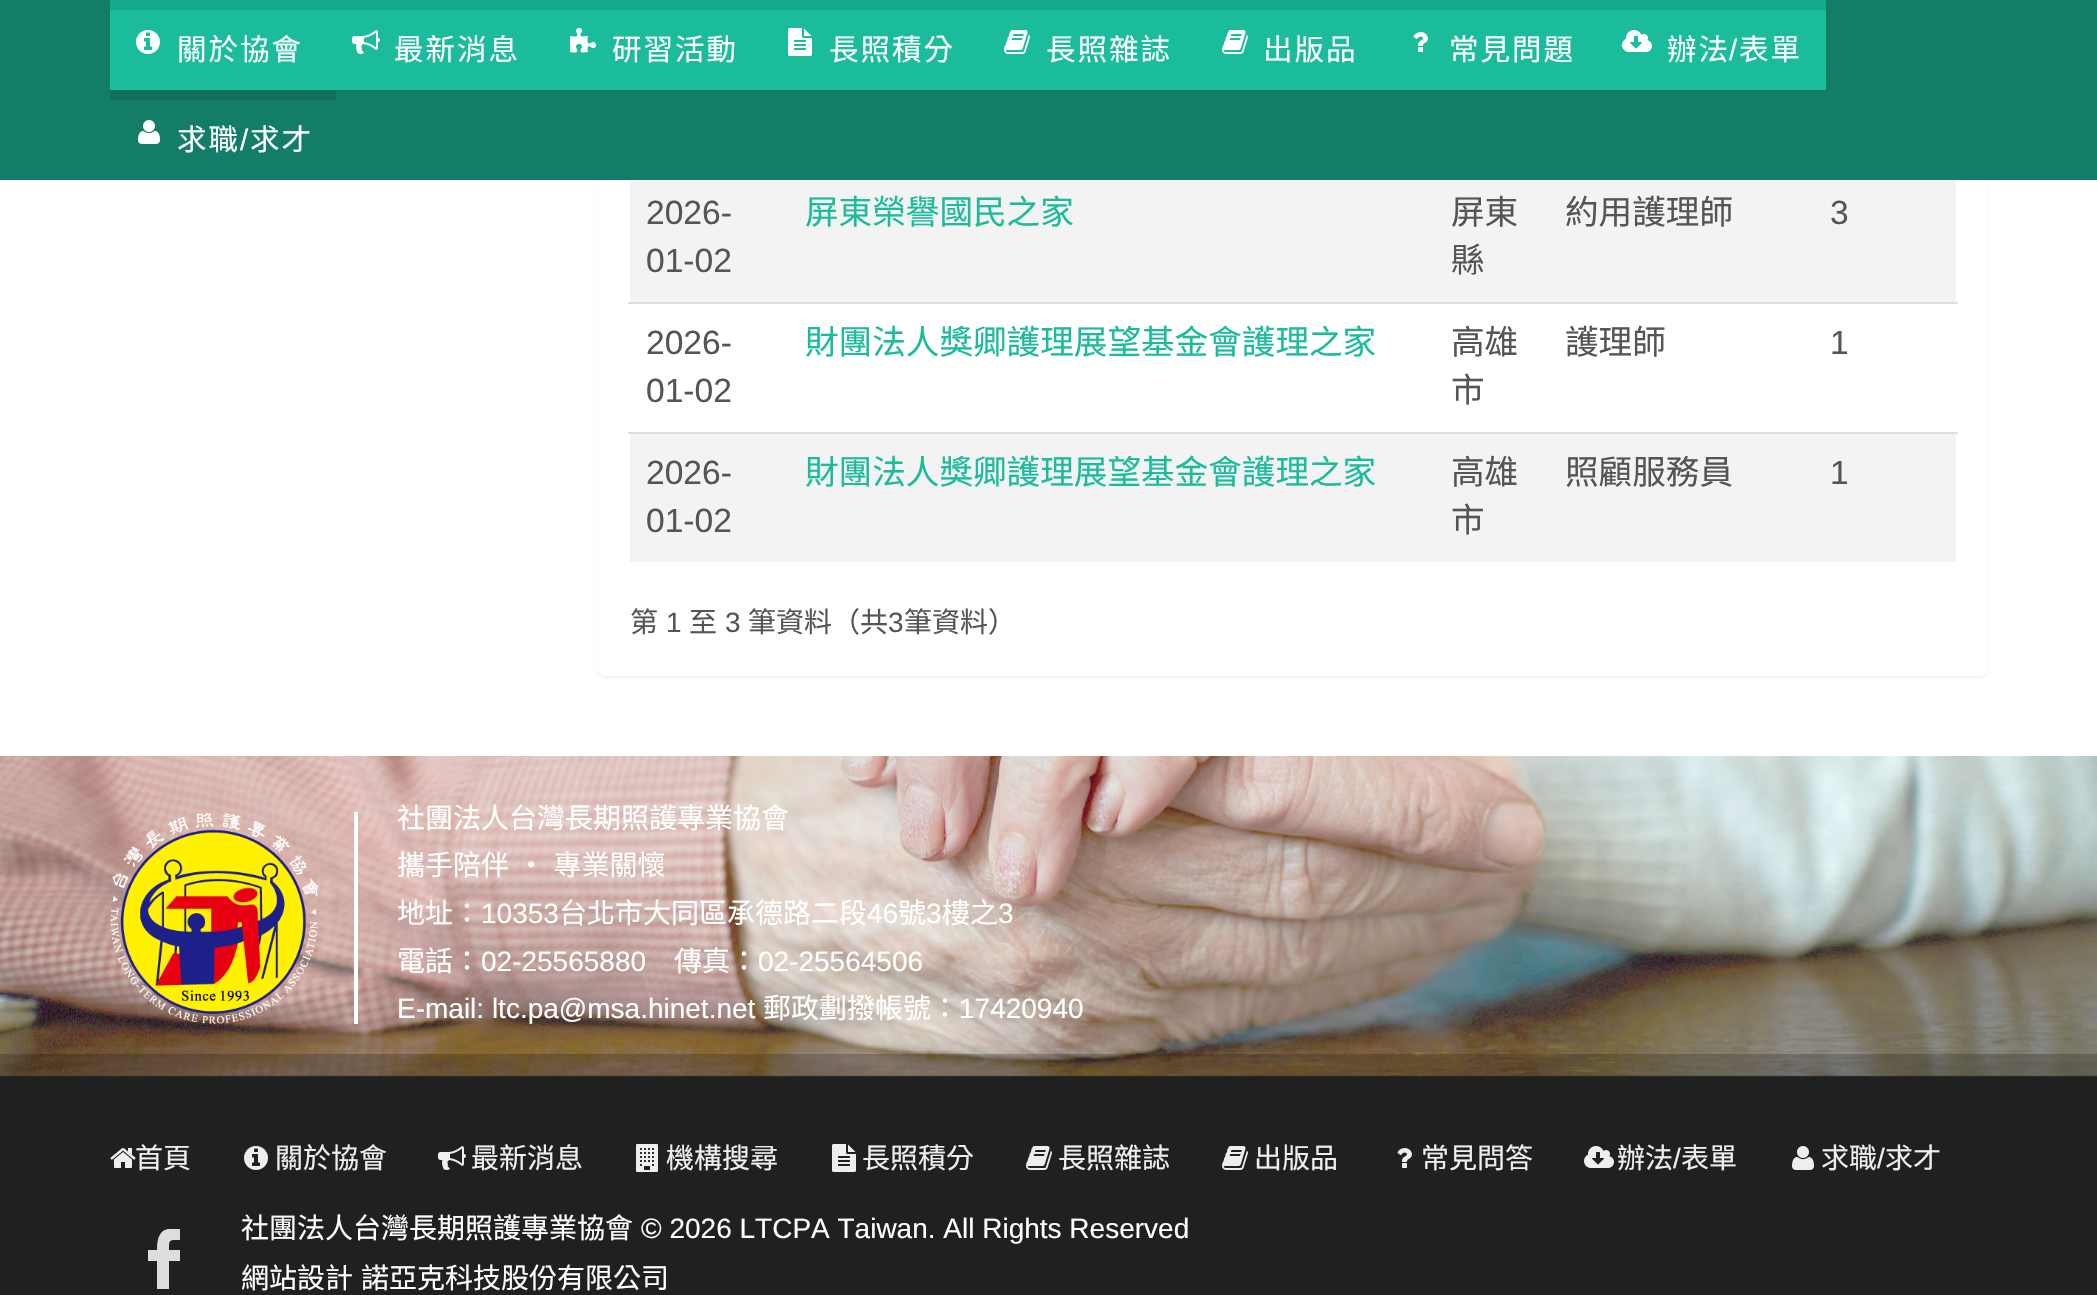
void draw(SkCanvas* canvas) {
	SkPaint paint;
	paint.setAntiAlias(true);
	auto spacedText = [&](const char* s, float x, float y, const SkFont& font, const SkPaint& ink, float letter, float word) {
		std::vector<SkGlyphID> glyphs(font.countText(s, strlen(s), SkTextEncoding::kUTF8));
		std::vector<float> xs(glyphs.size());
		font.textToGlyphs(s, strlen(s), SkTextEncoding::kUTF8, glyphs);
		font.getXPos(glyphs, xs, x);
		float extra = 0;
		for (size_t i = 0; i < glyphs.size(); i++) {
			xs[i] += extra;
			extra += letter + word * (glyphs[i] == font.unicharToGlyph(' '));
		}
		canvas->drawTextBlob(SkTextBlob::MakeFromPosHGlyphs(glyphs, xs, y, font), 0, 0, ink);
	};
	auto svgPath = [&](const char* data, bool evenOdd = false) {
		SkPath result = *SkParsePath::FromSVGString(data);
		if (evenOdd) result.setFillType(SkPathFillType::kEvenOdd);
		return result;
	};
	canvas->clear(0xffffffff);
	paint.setColor(0x0d000000);
	paint.setMaskFilter(SkMaskFilter::MakeBlur(kNormal_SkBlurStyle, 1));
	canvas->drawRoundRect(SkRect::MakeXYWH(598, -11, 1390, 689), 8, 8, paint);
	paint.setMaskFilter(nullptr);
	paint.setColor(0xffffffff);
	canvas->drawRoundRect(SkRect::MakeXYWH(598, -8, 1390, 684), 8, 8, paint);
	paint.setColor(0xff137d68);
	canvas->drawRect(SkRect::MakeXYWH(0, 0, 2097, 180), paint);
	paint.setColor(0xff1abc9c);
	canvas->drawRect(SkRect::MakeXYWH(110, 10, 1716, 80), paint);
	paint.setColor(0xff17a98c);
	canvas->drawRect(SkRect::MakeXYWH(110, 0, 1716, 10), paint);
	canvas->drawImageRect(SkImages::DeferredFromEncodedData(SkData::MakeFromFileName("img1.png")), SkRect::MakeXYWH(136, 30, 24, 24), SkSamplingOptions());
	SkFont f1(fontMgr->matchFamilyStyle("Noto Sans CJK TC", SkFontStyle::Normal()), 29.5);
	f1.setSubpixel(true);
	paint.setColor(0xffffffff);
	spacedText("關於協會", 177, 60, f1, paint, 2, 0);
	canvas->drawImageRect(SkImages::DeferredFromEncodedData(SkData::MakeFromFileName("img2.png")), SkRect::MakeXYWH(352, 30, 28, 24), SkSamplingOptions());
	spacedText("最新消息", 394, 60, f1, paint, 2, 0);
	canvas->drawImageRect(SkImages::DeferredFromEncodedData(SkData::MakeFromFileName("img3.png")), SkRect::MakeXYWH(570, 28, 26, 25), SkSamplingOptions());
	spacedText("研習活動", 612, 60, f1, paint, 2, 0);
	canvas->drawImageRect(SkImages::DeferredFromEncodedData(SkData::MakeFromFileName("img4.png")), SkRect::MakeXYWH(788, 28, 24, 28), SkSamplingOptions());
	spacedText("長照積分", 829, 60, f1, paint, 2, 0);
	canvas->drawImageRect(SkImages::DeferredFromEncodedData(SkData::MakeFromFileName("img5.png")), SkRect::MakeXYWH(1004, 30, 26, 24), SkSamplingOptions());
	spacedText("長照雜誌", 1046, 60, f1, paint, 2, 0);
	canvas->drawImageRect(SkImages::DeferredFromEncodedData(SkData::MakeFromFileName("img5.png")), SkRect::MakeXYWH(1222, 30, 26, 24), SkSamplingOptions());
	spacedText("出版品", 1263, 60, f1, paint, 2, 0);
	canvas->drawImageRect(SkImages::DeferredFromEncodedData(SkData::MakeFromFileName("img6.png")), SkRect::MakeXYWH(1413, 32, 15, 20), SkSamplingOptions());
	spacedText("常見問題", 1449, 60, f1, paint, 2, 0);
	canvas->drawImageRect(SkImages::DeferredFromEncodedData(SkData::MakeFromFileName("img7.png")), SkRect::MakeXYWH(1622, 30, 30, 22), SkSamplingOptions());
	spacedText("辦法", 1667, 60, f1, paint, 2, 0);
	SkFont f2(fontMgr->matchFamilyStyle("Liberation Sans", SkFontStyle::Normal()), 29.5);
	f2.setSubpixel(true);
	spacedText("/", 1729, 60, f2, paint, 2, 0);
	spacedText("表單", 1739, 60, f1, paint, 2, 0);
	paint.setColor(0xff11715e);
	canvas->drawRect(SkRect::MakeXYWH(110, 90, 226, 10), paint);
	canvas->drawImageRect(SkImages::DeferredFromEncodedData(SkData::MakeFromFileName("img8.png")), SkRect::MakeXYWH(138, 120, 22, 24), SkSamplingOptions());
	paint.setColor(0xffffffff);
	spacedText("求職", 177, 150, f1, paint, 2, 0);
	spacedText("/", 240, 150, f2, paint, 2, 0);
	spacedText("求才", 250, 150, f1, paint, 2, 0);
	paint.setColor(0xfff3f3f3);
	canvas->drawRect(SkRect::MakeXYWH(630, 180, 1326, 122), paint);
	SkFont f3(fontMgr->matchFamilyStyle("Liberation Sans", SkFontStyle::Normal()), 33.6);
	f3.setSubpixel(true);
	paint.setColor(0xff555555);
	canvas->drawString("2026-", 646, 224, f3, paint);
	canvas->drawString("01-02", 646, 272, f3, paint);
	SkFont f4(fontMgr->matchFamilyStyle("Noto Sans CJK TC", SkFontStyle::Normal()), 33.6);
	f4.setSubpixel(true);
	paint.setColor(0xff1abc9c);
	canvas->drawString("屏東榮譽國民之家", 805, 224, f4, paint);
	paint.setColor(0xff555555);
	canvas->drawString("屏東", 1451, 224, f4, paint);
	canvas->drawString("縣", 1451, 272, f4, paint);
	canvas->drawString("約用護理師", 1565, 224, f4, paint);
	canvas->drawString("3", 1830, 224, f3, paint);
	canvas->drawString("2026-", 646, 354, f3, paint);
	canvas->drawString("01-02", 646, 402, f3, paint);
	paint.setColor(0xff1abc9c);
	canvas->drawString("財團法人獎卿護理展望基金會護理之家", 805, 354, f4, paint);
	paint.setColor(0xff555555);
	canvas->drawString("高雄", 1451, 354, f4, paint);
	canvas->drawString("市", 1451, 402, f4, paint);
	canvas->drawString("護理師", 1565, 354, f4, paint);
	paint.setColor(0xffdddddd);
	canvas->drawRect(SkRect::MakeXYWH(628, 302, 1330, 2), paint);
	paint.setColor(0xff555555);
	canvas->drawString("1", 1830, 354, f3, paint);
	paint.setColor(0xfff3f3f3);
	canvas->drawRect(SkRect::MakeXYWH(630, 434, 1326, 128), paint);
	paint.setColor(0xff555555);
	canvas->drawString("2026-", 646, 484, f3, paint);
	canvas->drawString("01-02", 646, 532, f3, paint);
	paint.setColor(0xff1abc9c);
	canvas->drawString("財團法人獎卿護理展望基金會護理之家", 805, 484, f4, paint);
	paint.setColor(0xff555555);
	canvas->drawString("高雄", 1451, 484, f4, paint);
	canvas->drawString("市", 1451, 532, f4, paint);
	canvas->drawString("照顧服務員", 1565, 484, f4, paint);
	paint.setColor(0xffdddddd);
	canvas->drawRect(SkRect::MakeXYWH(628, 432, 1330, 2), paint);
	paint.setColor(0xff555555);
	canvas->drawString("1", 1830, 484, f3, paint);
	SkFont f5(fontMgr->matchFamilyStyle("Noto Sans CJK TC", SkFontStyle::Normal()), 28);
	f5.setSubpixel(true);
	canvas->drawString("第", 630, 632, f5, paint);
	SkFont f6(fontMgr->matchFamilyStyle("Liberation Sans", SkFontStyle::Normal()), 28);
	f6.setSubpixel(true);
	canvas->drawString("1", 666, 632, f6, paint);
	canvas->drawString("至", 689, 632, f5, paint);
	canvas->drawString("3", 725, 632, f6, paint);
	canvas->drawString("筆資料（共", 748, 632, f5, paint);
	canvas->drawString("3", 888, 632, f6, paint);
	canvas->drawString("筆資料）", 904, 632, f5, paint);
	paint.setColor(0xff282828);
	canvas->drawRect(SkRect::MakeXYWH(0, 1075, 2097, 220), paint);
	canvas->drawImageRect(SkImages::DeferredFromEncodedData(SkData::MakeFromFileName("img9.png")), SkRect::MakeXYWH(0, 756, 2097, 321), SkSamplingOptions());
	paint.setColor(0xffffffff);
	canvas->drawRect(SkRect::MakeXYWH(354, 812, 4, 212), paint);
	canvas->drawImageRect(SkImages::DeferredFromEncodedData(SkData::MakeFromFileName("img10.png")), SkRect::MakeXYWH(110, 812, 208, 212), SkSamplingOptions());
	canvas->drawString("社團法人台灣長期照護專業協會", 397, 828, f5, paint);
	spacedText("攜手陪伴 ‧ 專業關懷", 397, 875, f5, paint, 0, 2);
	canvas->drawString("地址：", 397, 923, f5, paint);
	canvas->drawString("10353", 481, 923, f6, paint);
	canvas->drawString("台北市大同區承德路二段", 559, 923, f5, paint);
	canvas->drawString("46", 867, 923, f6, paint);
	canvas->drawString("號", 898, 923, f5, paint);
	canvas->drawString("3", 926, 923, f6, paint);
	canvas->drawString("樓之", 942, 923, f5, paint);
	canvas->drawString("3", 998, 923, f6, paint);
	canvas->drawString("電話：", 397, 971, f5, paint);
	canvas->drawString("02-25565880", 481, 971, f6, paint);
	canvas->drawString("傳真：", 674, 971, f5, paint);
	canvas->drawString("02-25564506", 758, 971, f6, paint);
	canvas->drawString("E-mail: ltc.pa@msa.hinet.net", 397, 1018, f6, paint);
	canvas->drawString("郵政劃撥帳號：", 763, 1018, f5, paint);
	canvas->drawString("17420940", 959, 1018, f6, paint);
	paint.setColor(0x33000000);
	canvas->drawRect(SkRect::MakeXYWH(0, 1054, 2097, 241), paint);
	canvas->drawImageRect(SkImages::DeferredFromEncodedData(SkData::MakeFromFileName("img11.png")), SkRect::MakeXYWH(110, 1148, 26, 20), SkSamplingOptions());
	paint.setColor(0xffeeeeee);
	canvas->drawString("首頁", 135, 1168, f5, paint);
	canvas->drawImageRect(SkImages::DeferredFromEncodedData(SkData::MakeFromFileName("img12.png")), SkRect::MakeXYWH(244, 1146, 24, 24), SkSamplingOptions());
	canvas->drawString("關於協會", 275, 1168, f5, paint);
	canvas->drawImageRect(SkImages::DeferredFromEncodedData(SkData::MakeFromFileName("img13.png")), SkRect::MakeXYWH(438, 1146, 28, 24), SkSamplingOptions());
	canvas->drawString("最新消息", 471, 1168, f5, paint);
	canvas->drawImageRect(SkImages::DeferredFromEncodedData(SkData::MakeFromFileName("img14.png")), SkRect::MakeXYWH(636, 1144, 22, 28), SkSamplingOptions());
	canvas->drawString("機構搜尋", 666, 1168, f5, paint);
	canvas->drawImageRect(SkImages::DeferredFromEncodedData(SkData::MakeFromFileName("img15.png")), SkRect::MakeXYWH(832, 1144, 24, 28), SkSamplingOptions());
	canvas->drawString("長照積分", 862, 1168, f5, paint);
	canvas->drawImageRect(SkImages::DeferredFromEncodedData(SkData::MakeFromFileName("img16.png")), SkRect::MakeXYWH(1026, 1146, 26, 24), SkSamplingOptions());
	canvas->drawString("長照雜誌", 1058, 1168, f5, paint);
	canvas->drawImageRect(SkImages::DeferredFromEncodedData(SkData::MakeFromFileName("img16.png")), SkRect::MakeXYWH(1222, 1146, 26, 24), SkSamplingOptions());
	canvas->drawString("出版品", 1254, 1168, f5, paint);
	canvas->drawImageRect(SkImages::DeferredFromEncodedData(SkData::MakeFromFileName("img17.png")), SkRect::MakeXYWH(1397, 1148, 15, 20), SkSamplingOptions());
	canvas->drawString("常見問答", 1421, 1168, f5, paint);
	canvas->drawImageRect(SkImages::DeferredFromEncodedData(SkData::MakeFromFileName("img18.png")), SkRect::MakeXYWH(1584, 1146, 30, 22), SkSamplingOptions());
	canvas->drawString("辦法", 1617, 1168, f5, paint);
	canvas->drawString("/", 1673, 1168, f6, paint);
	canvas->drawString("表單", 1681, 1168, f5, paint);
	canvas->drawImageRect(SkImages::DeferredFromEncodedData(SkData::MakeFromFileName("img19.png")), SkRect::MakeXYWH(1792, 1146, 22, 24), SkSamplingOptions());
	canvas->drawString("求職", 1821, 1168, f5, paint);
	canvas->drawString("/", 1877, 1168, f6, paint);
	canvas->drawString("求才", 1885, 1168, f5, paint);
	paint.setColor(0xffdddddd);
	canvas->drawPath(svgPath("M148 1261V1250H157C157 1241 158 1231 168 1229H180V1240C169 1240 169 1239 169 1250H180V1261H169V1289H157V1261Z"), paint);
	paint.setColor(0xffffffff);
	canvas->drawString("社團法人台灣長期照護專業協會", 241, 1238, f5, paint);
	canvas->drawString("© 2026 LTCPA Taiwan. All Rights Reserved", 641, 1238, f6, paint);
	canvas->drawString("網站設計", 241, 1288, f5, paint);
	canvas->drawString("諾亞克科技股份有限公司", 361, 1288, f5, paint);
}
